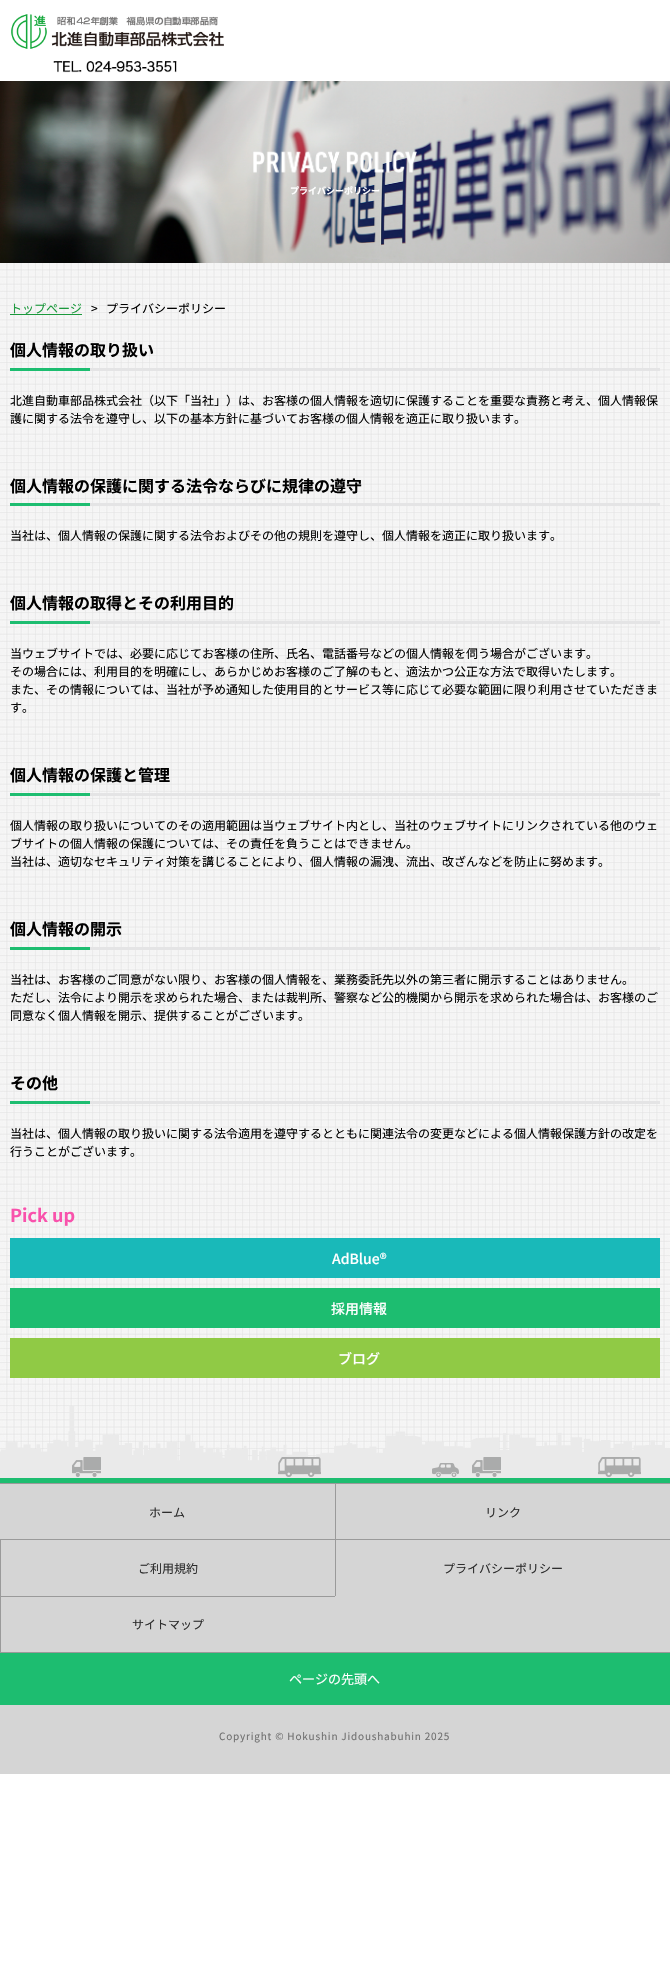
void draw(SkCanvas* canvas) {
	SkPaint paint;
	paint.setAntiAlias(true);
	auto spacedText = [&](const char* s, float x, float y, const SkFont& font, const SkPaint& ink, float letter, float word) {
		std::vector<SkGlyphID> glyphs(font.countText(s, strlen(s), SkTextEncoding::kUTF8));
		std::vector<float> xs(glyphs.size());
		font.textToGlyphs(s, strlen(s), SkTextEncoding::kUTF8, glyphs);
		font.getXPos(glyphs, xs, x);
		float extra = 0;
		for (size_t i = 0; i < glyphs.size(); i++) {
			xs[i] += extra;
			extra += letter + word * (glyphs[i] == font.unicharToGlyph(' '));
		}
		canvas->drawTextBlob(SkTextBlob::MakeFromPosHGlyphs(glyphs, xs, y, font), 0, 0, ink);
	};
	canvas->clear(0xffffffff);
	canvas->drawImageRect(SkImages::DeferredFromEncodedData(SkData::MakeFromFileName("img1.png")), SkRect::MakeXYWH(0, 81, 670, 182), SkSamplingOptions());
	canvas->drawImageRect(SkImages::DeferredFromEncodedData(SkData::MakeFromFileName("img2.png")), SkRect::MakeXYWH(11, 14, 213, 35), SkSamplingOptions());
	canvas->drawImageRect(SkImages::DeferredFromEncodedData(SkData::MakeFromFileName("img3.png")), SkRect::MakeXYWH(53, 60, 124, 13), SkSamplingOptions());
	canvas->drawImageRect(SkImages::DeferredFromEncodedData(SkData::MakeFromFileName("img4.png")), SkRect::MakeXYWH(253, 151, 164, 22), SkSamplingOptions());
	SkFont f1(fontMgr->matchFamilyStyle("Noto Sans JP", SkFontStyle::Bold()), 9);
	f1.setSubpixel(true);
	paint.setColor(0xffffffff);
	canvas->drawString("プライバシーポリシー", 290, 194, f1, paint);
	canvas->drawImageRect(SkImages::DeferredFromEncodedData(SkData::MakeFromFileName("img5.png")), SkRect::MakeXYWH(0, 263, 670, 1215), SkSamplingOptions());
	SkFont f2(fontMgr->matchFamilyStyle("Noto Sans JP", SkFontStyle::Normal()), 12);
	f2.setSubpixel(true);
	paint.setColor(0xff1b993c);
	canvas->drawString("トップページ", 10, 313, f2, paint);
	canvas->drawRect(SkRect::MakeXYWH(10, 314, 72, 1), paint);
	paint.setColor(0xff000000);
	canvas->drawString(">", 91, 313, f2, paint);
	canvas->drawString("プライバシーポリシー", 106, 313, f2, paint);
	paint.setColor(0xffe4e4e5);
	canvas->drawRect(SkRect::MakeXYWH(90, 368, 570, 3), paint);
	SkFont f3(fontMgr->matchFamilyStyle("Noto Sans JP", SkFontStyle::Bold()), 16);
	f3.setSubpixel(true);
	paint.setColor(0xff000000);
	canvas->drawString("個人情報の取り扱い", 10, 356, f3, paint);
	paint.setColor(0xff1dbd70);
	canvas->drawRect(SkRect::MakeXYWH(10, 368, 80, 3), paint);
	paint.setColor(0xff000000);
	canvas->drawString("北進自動車部品株式会社（以下「当社」）は、お客様の個人情報を適切に保護することを重要な責務と考え、個人情報保", 10, 405, f2, paint);
	canvas->drawString("護に関する法令を遵守し、以下の基本方針に基づいてお客様の個人情報を適正に取り扱います。", 10, 423, f2, paint);
	paint.setColor(0xffe4e4e5);
	canvas->drawRect(SkRect::MakeXYWH(90, 503, 570, 3), paint);
	paint.setColor(0xff000000);
	canvas->drawString("個人情報の保護に関する法令ならびに規律の遵守", 10, 492, f3, paint);
	paint.setColor(0xff1dbd70);
	canvas->drawRect(SkRect::MakeXYWH(10, 503, 80, 3), paint);
	paint.setColor(0xff000000);
	canvas->drawString("当社は、個人情報の保護に関する法令およびその他の規則を遵守し、個人情報を適正に取り扱います。", 10, 540, f2, paint);
	paint.setColor(0xffe4e4e5);
	canvas->drawRect(SkRect::MakeXYWH(90, 621, 570, 3), paint);
	paint.setColor(0xff000000);
	canvas->drawString("個人情報の取得とその利用目的", 10, 609, f3, paint);
	paint.setColor(0xff1dbd70);
	canvas->drawRect(SkRect::MakeXYWH(10, 621, 80, 3), paint);
	paint.setColor(0xff000000);
	canvas->drawString("当ウェブサイトでは、必要に応じてお客様の住所、氏名、電話番号などの個人情報を伺う場合がございます。", 10, 658, f2, paint);
	canvas->drawString("その場合には、利用目的を明確にし、あらかじめお客様のご了解のもと、適法かつ公正な方法で取得いたします。", 10, 676, f2, paint);
	canvas->drawString("また、その情報については、当社が予め通知した使用目的とサービス等に応じて必要な範囲に限り利用させていただきま", 10, 694, f2, paint);
	canvas->drawString("す。", 10, 712, f2, paint);
	paint.setColor(0xffe4e4e5);
	canvas->drawRect(SkRect::MakeXYWH(90, 793, 570, 3), paint);
	paint.setColor(0xff000000);
	canvas->drawString("個人情報の保護と管理", 10, 781, f3, paint);
	paint.setColor(0xff1dbd70);
	canvas->drawRect(SkRect::MakeXYWH(10, 793, 80, 3), paint);
	paint.setColor(0xff000000);
	canvas->drawString("個人情報の取り扱いについてのその適用範囲は当ウェブサイト内とし、当社のウェブサイトにリンクされている他のウェ", 10, 830, f2, paint);
	canvas->drawString("ブサイトの個人情報の保護については、その責任を負うことはできません。", 10, 848, f2, paint);
	canvas->drawString("当社は、適切なセキュリティ対策を講じることにより、個人情報の漏洩、流出、改ざんなどを防止に努めます。", 10, 866, f2, paint);
	paint.setColor(0xffe4e4e5);
	canvas->drawRect(SkRect::MakeXYWH(90, 947, 570, 3), paint);
	paint.setColor(0xff000000);
	canvas->drawString("個人情報の開示", 10, 935, f3, paint);
	paint.setColor(0xff1dbd70);
	canvas->drawRect(SkRect::MakeXYWH(10, 947, 80, 3), paint);
	paint.setColor(0xff000000);
	canvas->drawString("当社は、お客様のご同意がない限り、お客様の個人情報を、業務委託先以外の第三者に開示することはありません。", 10, 984, f2, paint);
	canvas->drawString("ただし、法令により開示を求められた場合、または裁判所、警察など公的機関から開示を求められた場合は、お客様のご", 10, 1002, f2, paint);
	canvas->drawString("同意なく個人情報を開示、提供することがございます。", 10, 1020, f2, paint);
	paint.setColor(0xffe4e4e5);
	canvas->drawRect(SkRect::MakeXYWH(90, 1101, 570, 3), paint);
	paint.setColor(0xff000000);
	canvas->drawString("その他", 10, 1089, f3, paint);
	paint.setColor(0xff1dbd70);
	canvas->drawRect(SkRect::MakeXYWH(10, 1101, 80, 3), paint);
	paint.setColor(0xff000000);
	canvas->drawString("当社は、個人情報の取り扱いに関する法令適用を遵守するとともに関連法令の変更などによる個人情報保護方針の改定を", 10, 1138, f2, paint);
	canvas->drawString("行うことがございます。", 10, 1156, f2, paint);
	SkFont f4(fontMgr->matchFamilyStyle("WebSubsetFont", SkFontStyle::Bold()), 18);
	f4.setSubpixel(true);
	paint.setColor(0xfff952ac);
	canvas->drawString("Pick up", 10, 1222, f4, paint);
	paint.setColor(0xff19b9b9);
	canvas->drawRect(SkRect::MakeXYWH(10, 1238, 650, 40), paint);
	SkFont f5(fontMgr->matchFamilyStyle("WebSubsetFont", SkFontStyle(500, SkFontStyle::kNormal_Width, SkFontStyle::kUpright_Slant)), 14);
	f5.setSubpixel(true);
	paint.setColor(0xffffffff);
	canvas->drawString("AdBlue®", 332, 1264, f5, paint);
	paint.setColor(0xff1dbd70);
	canvas->drawRect(SkRect::MakeXYWH(10, 1288, 650, 40), paint);
	paint.setColor(0xffffffff);
	canvas->drawString("採用情報", 331, 1314, f5, paint);
	paint.setColor(0xff90ca45);
	canvas->drawRect(SkRect::MakeXYWH(10, 1338, 650, 40), paint);
	paint.setColor(0xffffffff);
	canvas->drawString("ブログ", 338, 1364, f5, paint);
	paint.setColor(0xffd5d5d5);
	canvas->drawRect(SkRect::MakeXYWH(0, 1484, 670, 290), paint);
	paint.setColor(0xff1dbd70);
	canvas->drawRect(SkRect::MakeXYWH(0, 1478, 670, 5), paint);
	paint.setColor(0xff9a9a9a);
	canvas->drawRect(SkRect::MakeXYWH(0, 1652, 670, 1), paint);
	canvas->drawRect(SkRect::MakeXYWH(0, 1483, 670, 1), paint);
	paint.setColor(0xff2d2d2d);
	canvas->drawString("ホーム", 149, 1517, f2, paint);
	paint.setColor(0xff9a9a9a);
	canvas->drawRect(SkRect::MakeXYWH(335, 1483, 1, 56), paint);
	paint.setColor(0xff2d2d2d);
	canvas->drawString("リンク", 485, 1517, f2, paint);
	paint.setColor(0xff9a9a9a);
	canvas->drawRect(SkRect::MakeXYWH(0, 1539, 670, 1), paint);
	canvas->drawRect(SkRect::MakeXYWH(0, 1539, 1, 57), paint);
	paint.setColor(0xff2d2d2d);
	canvas->drawString("ご利用規約", 138, 1573, f2, paint);
	paint.setColor(0xff9a9a9a);
	canvas->drawRect(SkRect::MakeXYWH(335, 1539, 1, 57), paint);
	paint.setColor(0xff2d2d2d);
	canvas->drawString("プライバシーポリシー", 443, 1573, f2, paint);
	paint.setColor(0xff9a9a9a);
	canvas->drawRect(SkRect::MakeXYWH(0, 1596, 335, 1), paint);
	canvas->drawRect(SkRect::MakeXYWH(0, 1596, 1, 56), paint);
	paint.setColor(0xff2d2d2d);
	canvas->drawString("サイトマップ", 132, 1629, f2, paint);
	paint.setColor(0xff1dbd70);
	canvas->drawRect(SkRect::MakeXYWH(0, 1653, 670, 52), paint);
	SkFont f6(fontMgr->matchFamilyStyle("Noto Sans JP", SkFontStyle::Normal()), 13);
	f6.setSubpixel(true);
	paint.setColor(0xffffffff);
	canvas->drawString("ページの先頭へ", 289, 1684, f6, paint);
	SkFont f7(fontMgr->matchFamilyStyle("Noto Sans JP", SkFontStyle::Normal()), 10);
	f7.setSubpixel(true);
	paint.setColor(0xff707070);
	spacedText("Copyright © Hokushin Jidoushabuhin 2025", 219, 1740, f7, paint, 0.8, 0);
}
